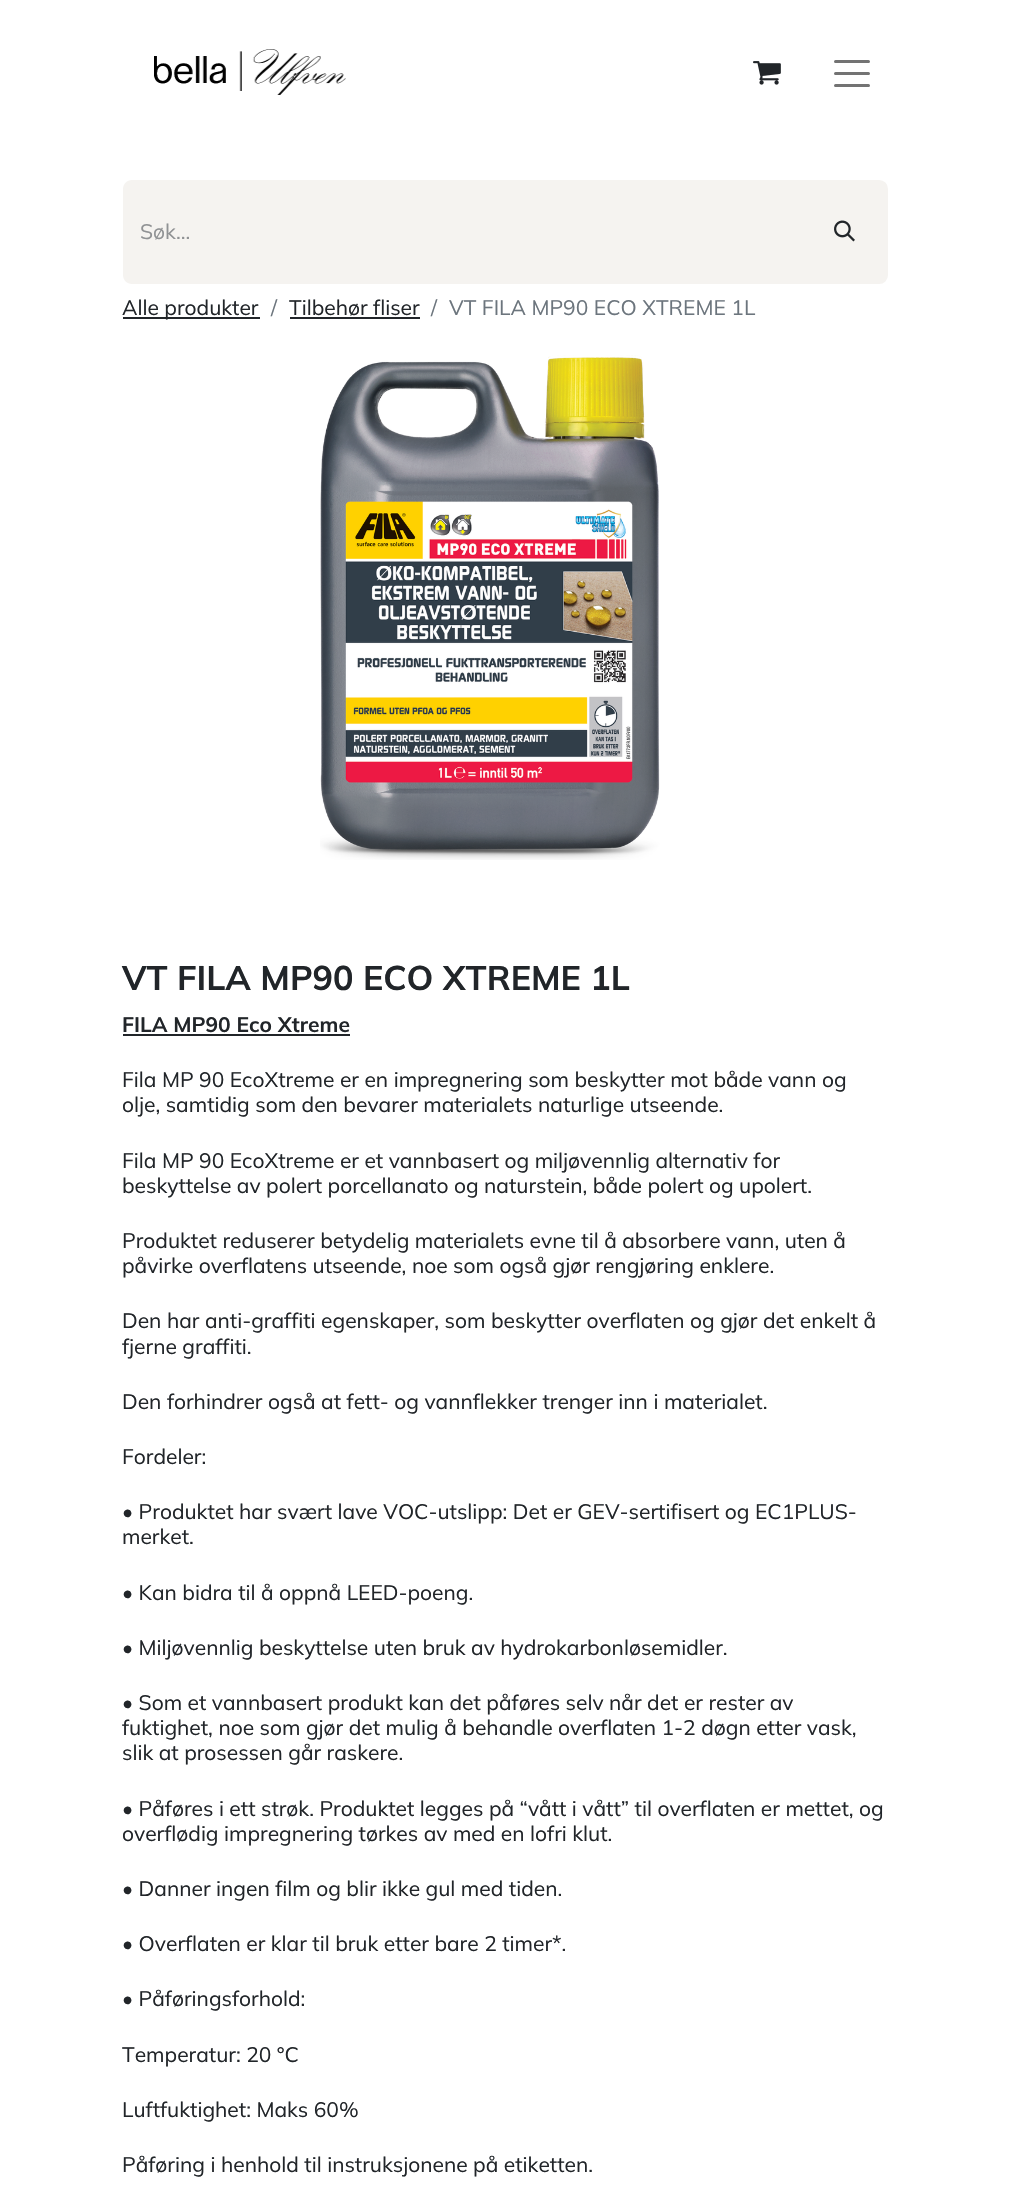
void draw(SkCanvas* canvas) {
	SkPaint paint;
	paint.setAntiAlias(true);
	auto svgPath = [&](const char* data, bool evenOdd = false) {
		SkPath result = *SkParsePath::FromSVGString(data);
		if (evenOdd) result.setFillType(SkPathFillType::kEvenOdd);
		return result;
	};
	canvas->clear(0xffffffff);
	canvas->drawImageRect(SkImages::DeferredFromEncodedData(SkData::MakeFromFileName("img1.png")), SkRect::MakeXYWH(154, 49, 192, 46), SkSamplingOptions());
	canvas->drawImageRect(SkImages::DeferredFromEncodedData(SkData::MakeFromFileName("img2.png")), SkRect::MakeXYWH(753, 61, 28, 24), SkSamplingOptions());
	paint.setStroke(true);
	paint.setStrokeWidth(3);
	paint.setStrokeCap(SkPaint::kRound_Cap);
	paint.setColor(0xff737373);
	canvas->drawPath(svgPath("M835.5 61.5H868.5M835.5 73.5H868.5M835.5 85.5H868.5"), paint);
	paint.setStroke(false);
	paint.setColor(0xfff5f3f0);
	canvas->drawPath(svgPath("M132 180H806V284H132C127 284 123 280 123 275V189C123 184 127 180 132 180Z"), paint);
	SkFont f1(fontMgr->matchFamilyStyle("Mulish", SkFontStyle::Normal()), 21);
	f1.setSubpixel(true);
	paint.setColor(0xff909294);
	canvas->drawString("Søk...", 140, 239, f1, paint);
	paint.setColor(0xfff5f3f0);
	canvas->drawPath(svgPath("M804 181H879C883.5 181 887 184.5 887 189V275C887 279.5 883.5 283 879 283H804Z"), paint);
	paint.setStroke(true);
	paint.setStrokeWidth(2);
	paint.setStrokeCap(SkPaint::kButt_Cap);
	canvas->drawPath(svgPath("M804 181H879C883.5 181 887 184.5 887 189V275C887 279.5 883.5 283 879 283H804Z"), paint);
	canvas->drawImageRect(SkImages::DeferredFromEncodedData(SkData::MakeFromFileName("img3.png")), SkRect::MakeXYWH(834, 220, 21, 22), SkSamplingOptions());
	paint.setStroke(false);
	paint.setColor(0xff212529);
	canvas->drawRect(SkRect::MakeXYWH(123, 317, 137, 2), paint);
	canvas->drawString("Alle produkter", 122, 315, f1, paint);
	paint.setColor(0xff6c757d);
	canvas->drawString("/", 271, 315, f1, paint);
	paint.setColor(0xff212529);
	canvas->drawString("Tilbehør fliser", 289, 315, f1, paint);
	canvas->drawRect(SkRect::MakeXYWH(290, 317, 130, 2), paint);
	paint.setColor(0xff6c757d);
	canvas->drawString("/", 431, 315, f1, paint);
	canvas->drawString("VT FILA MP90 ECO XTREME 1L", 449, 315, f1, paint);
	canvas->drawImageRect(SkImages::DeferredFromEncodedData(SkData::MakeFromFileName("img4.png")), SkRect::MakeXYWH(320, 355, 340, 505), SkSamplingOptions());
	SkFont f2(fontMgr->matchFamilyStyle("Mulish", SkFontStyle::Bold()), 34.1);
	f2.setSubpixel(true);
	paint.setColor(0xff212529);
	canvas->drawString("VT FILA MP90 ECO XTREME 1L", 122, 990, f2, paint);
	SkFont f3(fontMgr->matchFamilyStyle("Mulish", SkFontStyle::Bold()), 21);
	f3.setSubpixel(true);
	canvas->drawString("FILA MP90 Eco Xtreme", 122, 1032, f3, paint);
	canvas->drawRect(SkRect::MakeXYWH(123, 1034, 227, 2), paint);
	canvas->drawString("Fila MP 90 EcoXtreme er en impregnering som beskytter mot både vann og", 122, 1087, f1, paint);
	canvas->drawString("olje, samtidig som den bevarer materialets naturlige utseende.", 122, 1112, f1, paint);
	canvas->drawString("Fila MP 90 EcoXtreme er et vannbasert og miljøvennlig alternativ for", 122, 1168, f1, paint);
	canvas->drawString("beskyttelse av polert porcellanato og naturstein, både polert og upolert.", 122, 1193, f1, paint);
	canvas->drawString("Produktet reduserer betydelig materialets evne til å absorbere vann, uten å", 122, 1248, f1, paint);
	canvas->drawString("påvirke overflatens utseende, noe som også gjør rengjøring enklere.", 122, 1273, f1, paint);
	canvas->drawString("Den har anti-graffiti egenskaper, som beskytter overflaten og gjør det enkelt å", 122, 1328, f1, paint);
	canvas->drawString("fjerne graffiti.", 122, 1354, f1, paint);
	canvas->drawString("Den forhindrer også at fett- og vannflekker trenger inn i materialet.", 122, 1409, f1, paint);
	canvas->drawString("Fordeler:", 122, 1464, f1, paint);
	canvas->drawString("• Produktet har svært lave VOC-utslipp: Det er GEV-sertifisert og EC1PLUS-", 122, 1519, f1, paint);
	canvas->drawString("merket.", 122, 1544, f1, paint);
	canvas->drawString("• Kan bidra til å oppnå LEED-poeng.", 122, 1600, f1, paint);
	canvas->drawString("• Miljøvennlig beskyttelse uten bruk av hydrokarbonløsemidler.", 122, 1655, f1, paint);
	canvas->drawString("• Som et vannbasert produkt kan det påføres selv når det er rester av", 122, 1710, f1, paint);
	canvas->drawString("fuktighet, noe som gjør det mulig å behandle overflaten 1-2 døgn etter vask,", 122, 1735, f1, paint);
	canvas->drawString("slik at prosessen går raskere.", 122, 1760, f1, paint);
	canvas->drawString("• Påføres i ett strøk. Produktet legges på “vått i vått” til overflaten er mettet, og", 122, 1816, f1, paint);
	canvas->drawString("overflødig impregnering tørkes av med en lofri klut.", 122, 1841, f1, paint);
	canvas->drawString("• Danner ingen film og blir ikke gul med tiden.", 122, 1896, f1, paint);
	canvas->drawString("• Overflaten er klar til bruk etter bare 2 timer*.", 122, 1951, f1, paint);
	canvas->drawString("• Påføringsforhold:", 122, 2006, f1, paint);
	canvas->drawString("Temperatur: 20 °C", 122, 2062, f1, paint);
	canvas->drawString("Luftfuktighet: Maks 60%", 122, 2117, f1, paint);
	canvas->drawString("Påføring i henhold til instruksjonene på etiketten.", 122, 2172, f1, paint);
}
